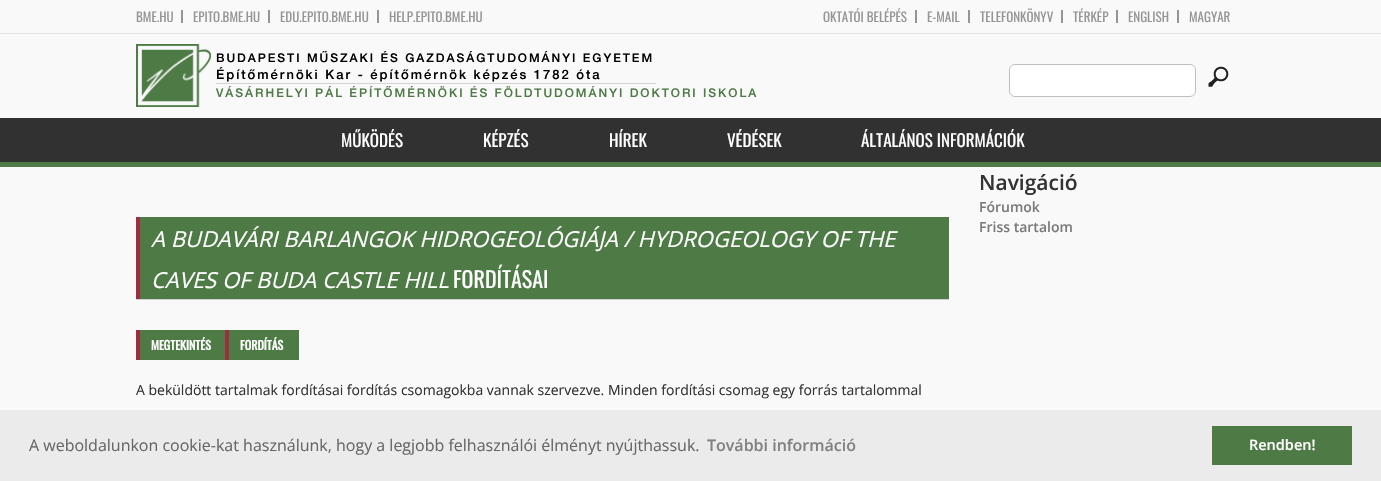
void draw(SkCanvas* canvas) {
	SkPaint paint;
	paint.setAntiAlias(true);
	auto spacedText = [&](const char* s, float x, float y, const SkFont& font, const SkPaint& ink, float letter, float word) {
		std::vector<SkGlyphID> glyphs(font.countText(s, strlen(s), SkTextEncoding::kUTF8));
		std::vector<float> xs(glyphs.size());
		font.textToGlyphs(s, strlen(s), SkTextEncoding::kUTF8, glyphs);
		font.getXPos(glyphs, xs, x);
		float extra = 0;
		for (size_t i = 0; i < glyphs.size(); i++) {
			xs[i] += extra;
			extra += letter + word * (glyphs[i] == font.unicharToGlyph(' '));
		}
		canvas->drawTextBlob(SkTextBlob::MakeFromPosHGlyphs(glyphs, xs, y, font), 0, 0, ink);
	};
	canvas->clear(0xfff9f9fa);
	paint.setColor(0xffe4e3e3);
	canvas->drawRect(SkRect::MakeXYWH(0, 33, 1381, 1), paint);
	SkFont f1(fontMgr->matchFamilyStyle("Oswald", SkFontStyle::Normal()), 13);
	f1.setSubpixel(true);
	paint.setColor(0xff959595);
	canvas->drawString("BME.HU", 136, 22, f1, paint);
	canvas->drawRect(SkRect::MakeXYWH(181, 10, 2, 13), paint);
	canvas->drawString("EPITO.BME.HU", 193, 22, f1, paint);
	canvas->drawRect(SkRect::MakeXYWH(268, 10, 2, 13), paint);
	canvas->drawString("EDU.EPITO.BME.HU", 280, 22, f1, paint);
	canvas->drawRect(SkRect::MakeXYWH(377, 10, 2, 13), paint);
	canvas->drawString("HELP.EPITO.BME.HU", 389, 22, f1, paint);
	canvas->drawString("OKTATÓI BELÉPÉS", 823, 22, f1, paint);
	canvas->drawRect(SkRect::MakeXYWH(915, 10, 2, 13), paint);
	canvas->drawString("E-MAIL", 927, 22, f1, paint);
	canvas->drawRect(SkRect::MakeXYWH(968, 10, 2, 13), paint);
	canvas->drawString("TELEFONKÖNYV", 980, 22, f1, paint);
	canvas->drawRect(SkRect::MakeXYWH(1061, 10, 2, 13), paint);
	canvas->drawString("TÉRKÉP", 1073, 22, f1, paint);
	canvas->drawRect(SkRect::MakeXYWH(1116, 10, 2, 13), paint);
	canvas->drawString("ENGLISH", 1128, 22, f1, paint);
	canvas->drawRect(SkRect::MakeXYWH(1177, 10, 2, 13), paint);
	canvas->drawString("MAGYAR", 1189, 22, f1, paint);
	canvas->drawImageRect(SkImages::DeferredFromEncodedData(SkData::MakeFromFileName("img1.png")), SkRect::MakeXYWH(136, 44, 75, 63), SkSamplingOptions());
	SkFont f2(fontMgr->matchFamilyStyle("Helvetica Neue", SkFontStyle(500, SkFontStyle::kNormal_Width, SkFontStyle::kUpright_Slant)), 12);
	f2.setSubpixel(true);
	paint.setColor(0xff000000);
	spacedText("BUDAPESTI MŰSZAKI ÉS GAZDASÁGTUDOMÁNYI EGYETEM", 216, 62, f2, paint, 2, 0);
	SkFont f3(fontMgr->matchFamilyStyle("Helvetica Neue", SkFontStyle(500, SkFontStyle::kNormal_Width, SkFontStyle::kUpright_Slant)), 13);
	f3.setSubpixel(true);
	spacedText("Építőmérnöki Kar - építőmérnök képzés 1782 óta", 216, 79, f3, paint, 2, 0);
	paint.setColor(0xffd3d3d3);
	canvas->drawRect(SkRect::MakeXYWH(216, 83, 440, 1), paint);
	paint.setColor(0xff4e7a45);
	spacedText("VÁSÁRHELYI PÁL ÉPÍTŐMÉRNÖKI ÉS FÖLDTUDOMÁNYI DOKTORI ISKOLA", 216, 97, f2, paint, 2, 0);
	paint.setColor(0xffffffff);
	canvas->drawRoundRect(SkRect::MakeXYWH(1009.5, 64.5, 186, 32), 5.5, 5.5, paint);
	paint.setStroke(true);
	paint.setStrokeWidth(1);
	paint.setColor(0xffbfbfbf);
	canvas->drawRoundRect(SkRect::MakeXYWH(1009.5, 64.5, 186, 32), 5.5, 5.5, paint);
	canvas->drawImageRect(SkImages::DeferredFromEncodedData(SkData::MakeFromFileName("img2.png")), SkRect::MakeXYWH(1208, 66, 21, 21), SkSamplingOptions());
	paint.setStroke(false);
	paint.setColor(0xff313131);
	canvas->drawRect(SkRect::MakeXYWH(0, 118, 1381, 44), paint);
	paint.setColor(0xff4e7a45);
	canvas->drawRect(SkRect::MakeXYWH(0, 162, 1381, 5), paint);
	SkFont f4(fontMgr->matchFamilyStyle("Oswald", SkFontStyle::Normal()), 17);
	f4.setSubpixel(true);
	paint.setColor(0xffffffff);
	canvas->drawString("MŰKÖDÉS", 341, 147, f4, paint);
	canvas->drawString("KÉPZÉS", 483, 147, f4, paint);
	canvas->drawString("HÍREK", 609, 147, f4, paint);
	canvas->drawString("VÉDÉSEK", 727, 147, f4, paint);
	canvas->drawString("ÁLTALÁNOS INFORMÁCIÓK", 861, 147, f4, paint);
	SkFont f5(fontMgr->matchFamilyStyle("Open Sans", SkFontStyle(600, SkFontStyle::kNormal_Width, SkFontStyle::kUpright_Slant)), 21);
	f5.setSubpixel(true);
	paint.setColor(0xff333333);
	canvas->drawString("Navigáció", 979, 190, f5, paint);
	SkFont f6(fontMgr->matchFamilyStyle("Open Sans", SkFontStyle(600, SkFontStyle::kNormal_Width, SkFontStyle::kUpright_Slant)), 14);
	f6.setSubpixel(true);
	paint.setColor(0xff7b7b7b);
	canvas->drawString("Fórumok", 979, 212, f6, paint);
	canvas->drawString("Friss tartalom", 979, 232, f6, paint);
	paint.setColor(0xffd2d2d2);
	canvas->drawRect(SkRect::MakeXYWH(136, 299, 813, 1), paint);
	paint.setColor(0xff4e7a45);
	canvas->drawRect(SkRect::MakeXYWH(140, 217, 809, 82), paint);
	paint.setColor(0xff9e2d40);
	canvas->drawRect(SkRect::MakeXYWH(136, 217, 4, 82), paint);
	SkFont f7(fontMgr->matchFamilyStyle("Open Sans", SkFontStyle::Italic()), 22);
	f7.setSubpixel(true);
	paint.setColor(0xffffffff);
	canvas->drawString("A BUDAVÁRI BARLANGOK HIDROGEOLÓGIÁJA / HYDROGEOLOGY OF THE", 151, 247, f7, paint);
	canvas->drawString("CAVES OF BUDA CASTLE HILL", 151, 288, f7, paint);
	SkFont f8(fontMgr->matchFamilyStyle("Oswald", SkFontStyle::Normal()), 22);
	f8.setSubpixel(true);
	canvas->drawString("FORDÍTÁSAI", 453, 288, f8, paint);
	paint.setColor(0xff4e7a45);
	canvas->drawRect(SkRect::MakeXYWH(140, 330, 85, 30), paint);
	paint.setColor(0xff9e2d40);
	canvas->drawRect(SkRect::MakeXYWH(136, 330, 4, 30), paint);
	SkFont f9(fontMgr->matchFamilyStyle("Oswald", SkFontStyle::Bold()), 12);
	f9.setSubpixel(true);
	paint.setColor(0xffffffff);
	canvas->drawString("MEGTEKINTÉS", 151, 350, f9, paint);
	paint.setColor(0xff4e7a45);
	canvas->drawRect(SkRect::MakeXYWH(229, 330, 70, 30), paint);
	paint.setColor(0xff9e2d40);
	canvas->drawRect(SkRect::MakeXYWH(225, 330, 4, 30), paint);
	paint.setColor(0xffffffff);
	canvas->drawString("FORDÍTÁS", 240, 350, f9, paint);
	SkFont f10(fontMgr->matchFamilyStyle("Open Sans", SkFontStyle::Normal()), 14);
	f10.setSubpixel(true);
	paint.setColor(0xff333333);
	canvas->drawString("A beküldött tartalmak fordításai fordítás csomagokba vannak szervezve. Minden fordítási csomag egy forrás tartalommal", 136, 395, f10, paint);
	paint.setColor(0xffebebeb);
	canvas->drawRect(SkRect::MakeXYWH(0, 410, 1381, 71), paint);
	SkFont f11(fontMgr->matchFamilyStyle("Open Sans", SkFontStyle::Normal()), 16);
	f11.setSubpixel(true);
	paint.setColor(0xff666666);
	canvas->drawString("A weboldalunkon cookie-kat használunk, hogy a legjobb felhasználói élményt nyújthassuk.", 29, 451, f11, paint);
	SkFont f12(fontMgr->matchFamilyStyle("Open Sans", SkFontStyle(600, SkFontStyle::kNormal_Width, SkFontStyle::kUpright_Slant)), 16);
	f12.setSubpixel(true);
	paint.setColor(0xff818181);
	canvas->drawString("További információ", 707, 451, f12, paint);
	paint.setColor(0xff4e7a45);
	canvas->drawRect(SkRect::MakeXYWH(1212, 426, 140, 39), paint);
	SkFont f13(fontMgr->matchFamilyStyle("Open Sans", SkFontStyle(600, SkFontStyle::kNormal_Width, SkFontStyle::kUpright_Slant)), 14.5);
	f13.setSubpixel(true);
	paint.setColor(0xffffffff);
	canvas->drawString("Rendben!", 1249, 450, f13, paint);
}
